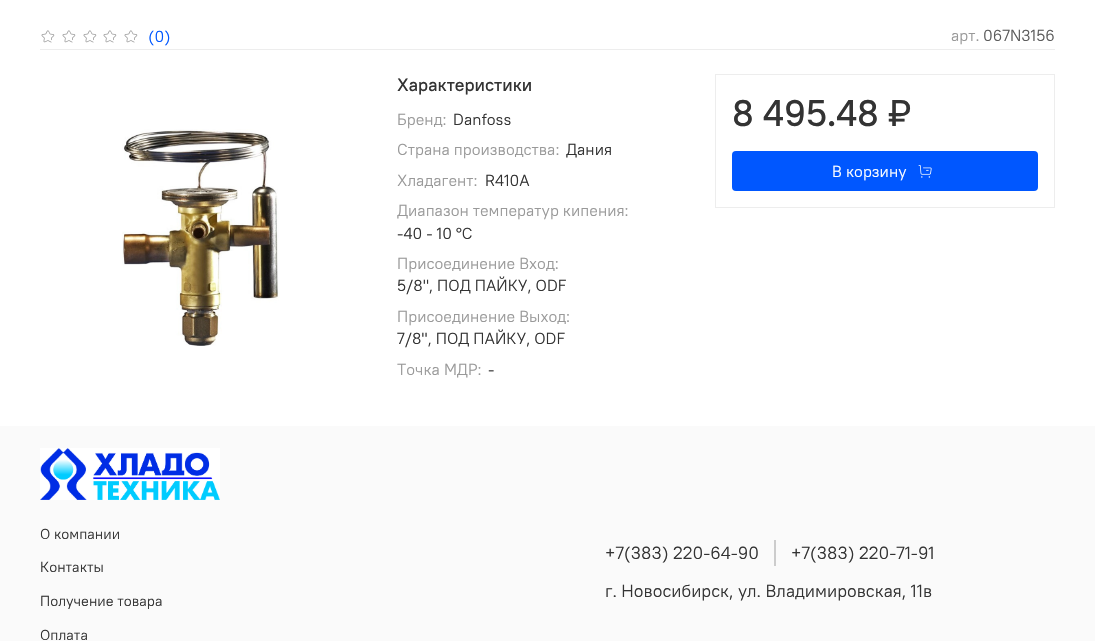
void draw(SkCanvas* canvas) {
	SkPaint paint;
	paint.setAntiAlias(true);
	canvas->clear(0xffffffff);
	canvas->drawImageRect(SkImages::DeferredFromEncodedData(SkData::MakeFromFileName("img1.png")), SkRect::MakeXYWH(41, 30, 14, 13), SkSamplingOptions());
	canvas->drawImageRect(SkImages::DeferredFromEncodedData(SkData::MakeFromFileName("img1.png")), SkRect::MakeXYWH(62, 30, 14, 13), SkSamplingOptions());
	canvas->drawImageRect(SkImages::DeferredFromEncodedData(SkData::MakeFromFileName("img1.png")), SkRect::MakeXYWH(83, 30, 14, 13), SkSamplingOptions());
	canvas->drawImageRect(SkImages::DeferredFromEncodedData(SkData::MakeFromFileName("img1.png")), SkRect::MakeXYWH(103, 30, 14, 13), SkSamplingOptions());
	canvas->drawImageRect(SkImages::DeferredFromEncodedData(SkData::MakeFromFileName("img1.png")), SkRect::MakeXYWH(124, 30, 14, 13), SkSamplingOptions());
	SkFont f1(fontMgr->matchFamilyStyle("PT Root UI", SkFontStyle::Normal()), 16);
	f1.setSubpixel(true);
	paint.setColor(0xff0057ff);
	canvas->drawString("(0)", 148, 42, f1, paint);
	paint.setColor(0xff999999);
	canvas->drawString("арт.", 951, 41, f1, paint);
	paint.setColor(0xff5c5c5c);
	canvas->drawString("067N3156", 983, 41, f1, paint);
	paint.setColor(0xffededed);
	canvas->drawRect(SkRect::MakeXYWH(40, 49, 1015, 1), paint);
	canvas->drawImageRect(SkImages::DeferredFromEncodedData(SkData::MakeFromFileName("img2.png")), SkRect::MakeXYWH(122, 129, 157, 217), SkSamplingOptions());
	SkFont f2(fontMgr->matchFamilyStyle("PT Root UI", SkFontStyle(500, SkFontStyle::kNormal_Width, SkFontStyle::kUpright_Slant)), 18);
	f2.setSubpixel(true);
	paint.setColor(0xff333333);
	canvas->drawString("Характеристики", 397, 91, f2, paint);
	paint.setColor(0xff999999);
	canvas->drawString("Бренд:", 397, 125, f1, paint);
	paint.setColor(0xff333333);
	canvas->drawString("Danfoss", 453, 125, f1, paint);
	paint.setColor(0xff999999);
	canvas->drawString("Страна производства:", 397, 155, f1, paint);
	paint.setColor(0xff333333);
	canvas->drawString("Дания", 566, 155, f1, paint);
	paint.setColor(0xff999999);
	canvas->drawString("Хладагент:", 397, 186, f1, paint);
	paint.setColor(0xff333333);
	canvas->drawString("R410A", 485, 186, f1, paint);
	paint.setColor(0xff999999);
	canvas->drawString("Диапазон температур кипения:", 397, 216, f1, paint);
	paint.setColor(0xff333333);
	canvas->drawString("-40 - 10 °C", 397, 239, f1, paint);
	paint.setColor(0xff999999);
	canvas->drawString("Присоединение Вход:", 397, 269, f1, paint);
	paint.setColor(0xff333333);
	canvas->drawString("5/8\", ПОД ПАЙКУ, ODF", 397, 291, f1, paint);
	paint.setColor(0xff999999);
	canvas->drawString("Присоединение Выход:", 397, 322, f1, paint);
	paint.setColor(0xff333333);
	canvas->drawString("7/8\", ПОД ПАЙКУ, ODF", 397, 344, f1, paint);
	paint.setColor(0xff999999);
	canvas->drawString("Точка МДР:", 397, 375, f1, paint);
	paint.setColor(0xff333333);
	canvas->drawString("-", 488, 375, f1, paint);
	paint.setStroke(true);
	paint.setStrokeWidth(1);
	paint.setColor(0xffededed);
	canvas->drawRect(SkRect::MakeXYWH(715.5, 74.5, 339, 133), paint);
	SkFont f3(fontMgr->matchFamilyStyle("PT Root UI", SkFontStyle(500, SkFontStyle::kNormal_Width, SkFontStyle::kUpright_Slant)), 37);
	f3.setSubpixel(true);
	paint.setStroke(false);
	paint.setColor(0xff333333);
	canvas->drawString("8 495.48 ₽", 732, 126, f3, paint);
	paint.setColor(0xff0057ff);
	canvas->drawRoundRect(SkRect::MakeXYWH(732, 151, 306, 40), 4, 4, paint);
	paint.setColor(0xffffffff);
	canvas->drawString("В корзину", 832, 177, f1, paint);
	canvas->drawImageRect(SkImages::DeferredFromEncodedData(SkData::MakeFromFileName("img3.png")), SkRect::MakeXYWH(918, 165, 14, 13), SkSamplingOptions());
	paint.setColor(0xfffafafa);
	canvas->drawRect(SkRect::MakeXYWH(0, 426, 1095, 215), paint);
	canvas->drawImageRect(SkImages::DeferredFromEncodedData(SkData::MakeFromFileName("img4.png")), SkRect::MakeXYWH(40, 448, 180, 52), SkSamplingOptions());
	SkFont f4(fontMgr->matchFamilyStyle("PT Root UI", SkFontStyle::Normal()), 14.5);
	f4.setSubpixel(true);
	paint.setColor(0xff333333);
	canvas->drawString("О компании", 40, 539, f4, paint);
	canvas->drawString("Контакты", 40, 572, f4, paint);
	canvas->drawString("Получение товара", 40, 606, f4, paint);
	canvas->drawString("Оплата", 40, 640, f4, paint);
	paint.setColor(0xffcccccc);
	canvas->drawRect(SkRect::MakeXYWH(774, 540, 2, 26), paint);
	SkFont f5(fontMgr->matchFamilyStyle("PT Root UI", SkFontStyle::Normal()), 17.6);
	f5.setSubpixel(true);
	paint.setColor(0xff333333);
	canvas->drawString("+7(383) 220-64-90", 605, 559, f5, paint);
	canvas->drawString("+7(383) 220-71-91", 791, 559, f5, paint);
	canvas->drawString("г. Новосибирск, ул. Владимировская, 11в", 605, 597, f5, paint);
}
